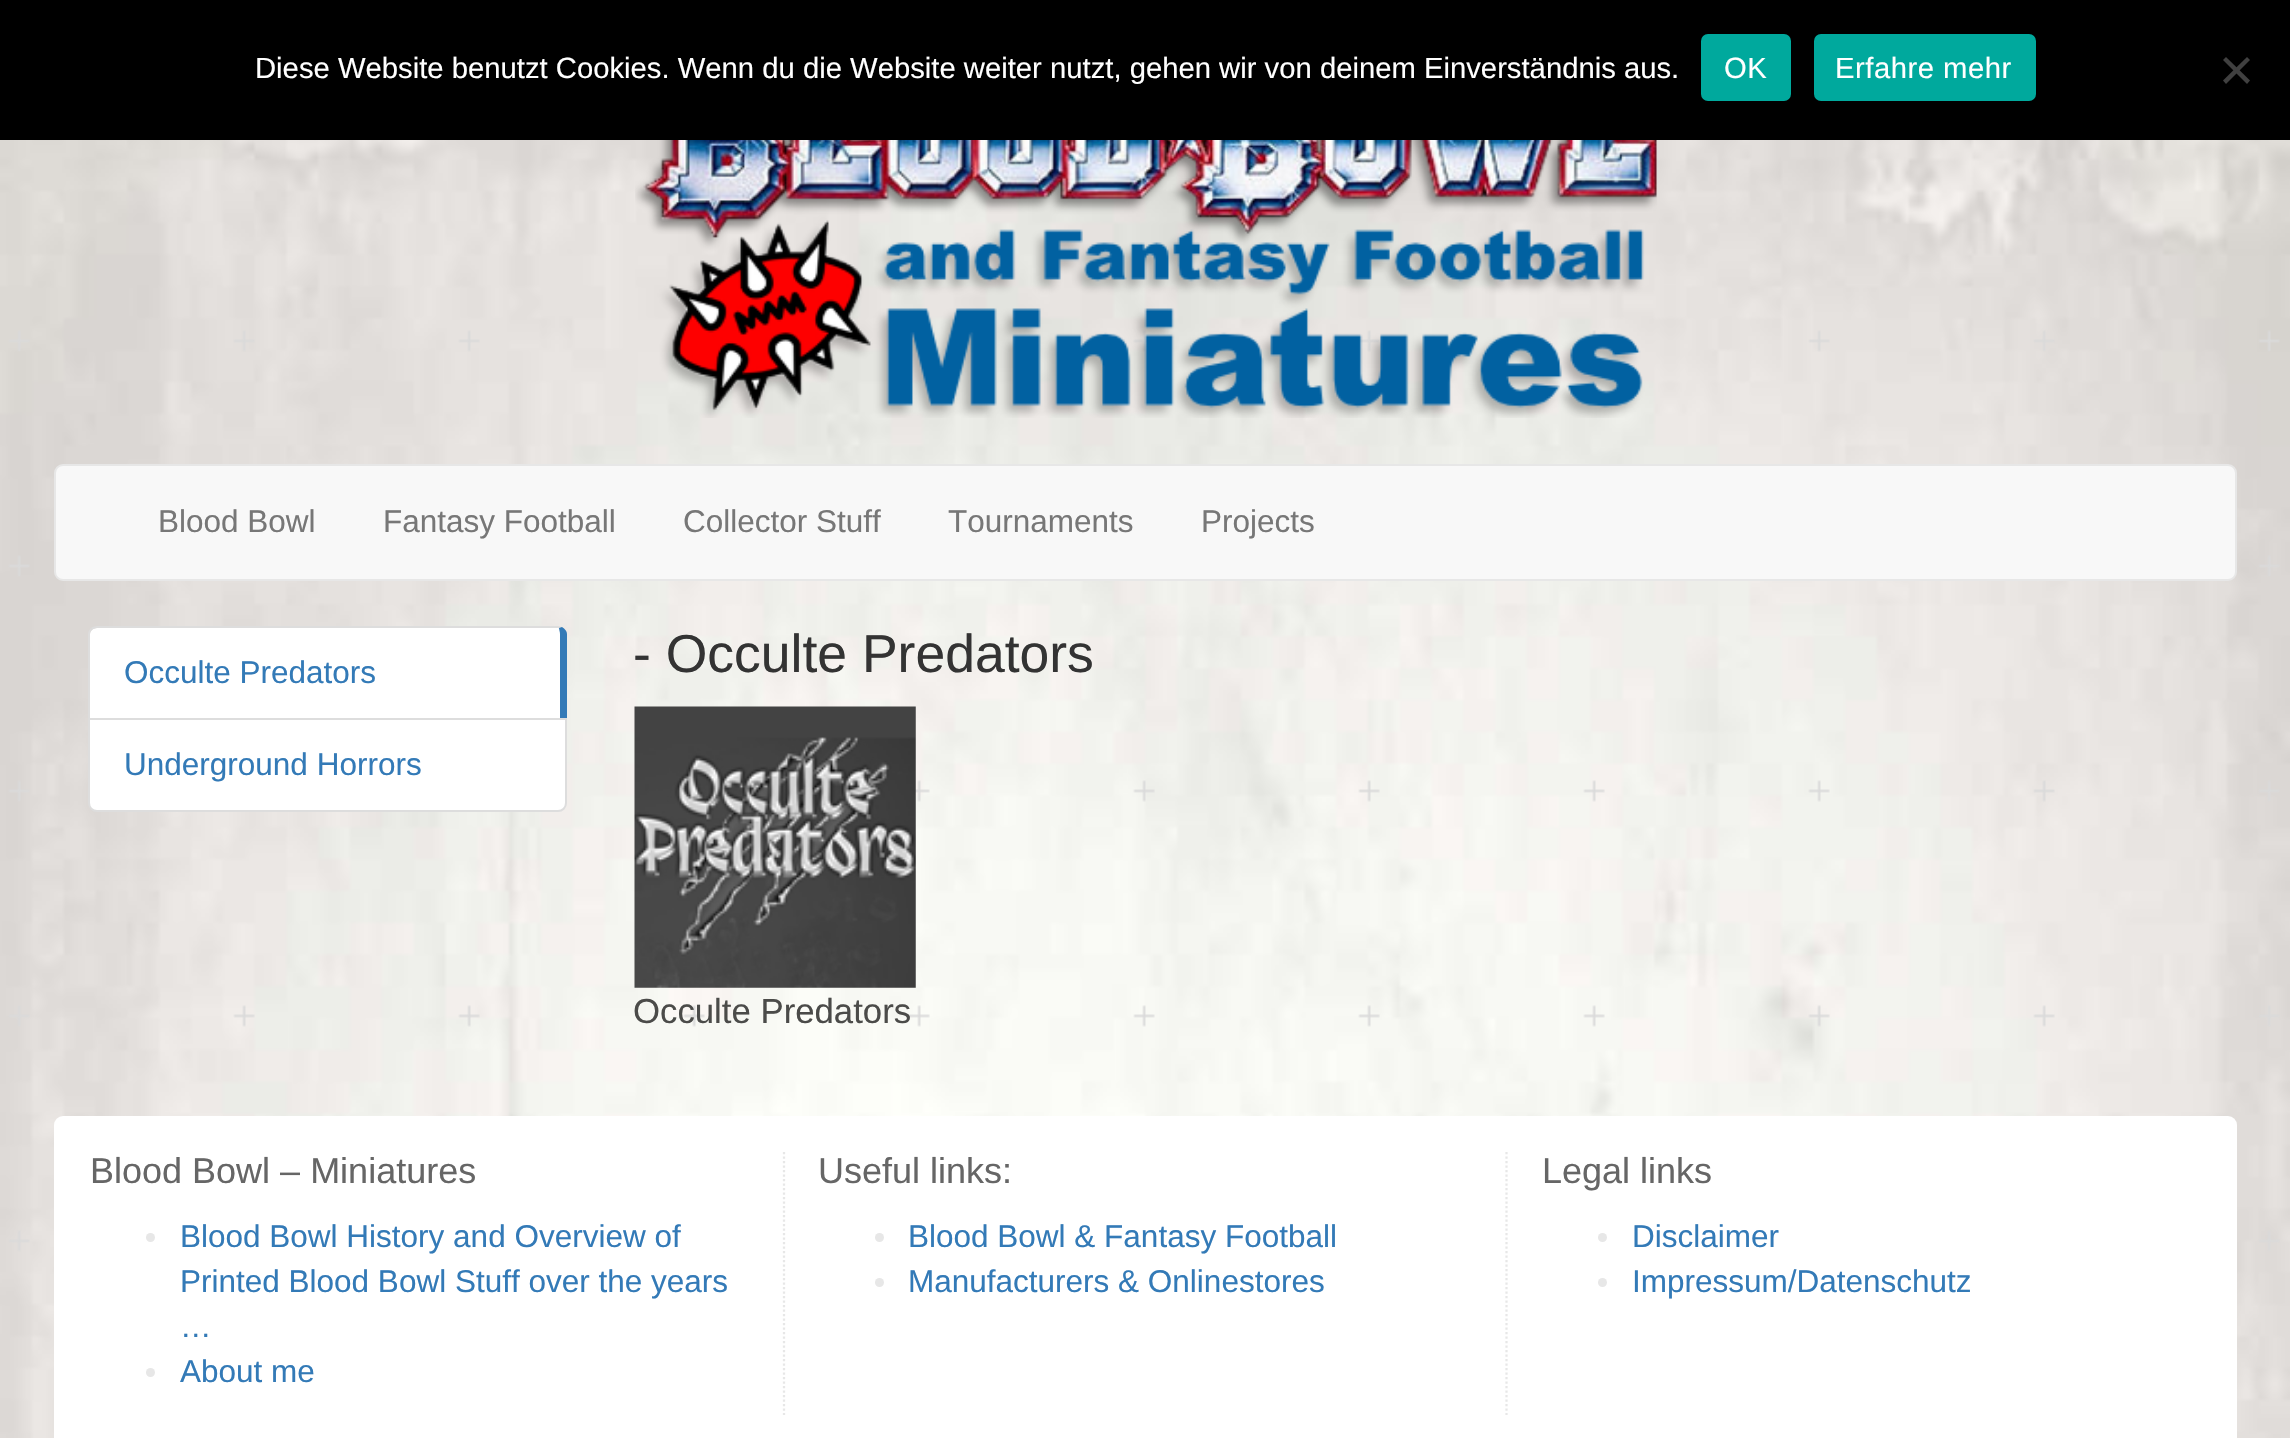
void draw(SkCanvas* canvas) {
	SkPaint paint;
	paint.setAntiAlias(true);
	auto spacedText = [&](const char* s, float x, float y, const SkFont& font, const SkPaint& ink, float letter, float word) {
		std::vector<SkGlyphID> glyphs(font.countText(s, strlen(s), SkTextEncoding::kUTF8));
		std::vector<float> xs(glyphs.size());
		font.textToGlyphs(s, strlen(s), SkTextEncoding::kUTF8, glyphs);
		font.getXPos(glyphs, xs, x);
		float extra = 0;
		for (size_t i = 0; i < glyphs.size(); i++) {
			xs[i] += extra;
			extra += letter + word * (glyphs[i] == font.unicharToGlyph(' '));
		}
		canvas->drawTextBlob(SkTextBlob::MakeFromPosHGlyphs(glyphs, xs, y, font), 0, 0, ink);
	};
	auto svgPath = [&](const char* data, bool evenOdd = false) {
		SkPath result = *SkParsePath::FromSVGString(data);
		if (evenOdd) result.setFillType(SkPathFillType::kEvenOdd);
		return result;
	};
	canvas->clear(0xffffffff);
	canvas->drawImageRect(SkImages::DeferredFromEncodedData(SkData::MakeFromFileName("img1.png")), SkRect::MakeXYWH(0, 140, 2290, 1298), SkSamplingOptions());
	paint.setColor(0xff000000);
	canvas->drawRect(SkRect::MakeXYWH(0, 0, 2290, 140), paint);
	SkFont f1(fontMgr->matchFamilyStyle("Liberation Sans", SkFontStyle::Normal()), 29.25);
	f1.setSubpixel(true);
	paint.setColor(0xffffffff);
	canvas->drawString("Diese Website benutzt Cookies. Wenn du die Website weiter nutzt, gehen wir von deinem Einverständnis aus.", 255, 78, f1, paint);
	paint.setColor(0xff00a99d);
	canvas->drawRoundRect(SkRect::MakeXYWH(1701, 34, 90, 67), 7, 7, paint);
	paint.setColor(0xffffffff);
	spacedText("OK", 1724, 78, f1, paint, 0.5, 0);
	paint.setColor(0xff00a99d);
	canvas->drawRoundRect(SkRect::MakeXYWH(1814, 34, 222, 67), 7, 7, paint);
	paint.setColor(0xffffffff);
	spacedText("Erfahre mehr", 1835, 78, f1, paint, 0.5, 0);
	paint.setColor(0xff404040);
	canvas->drawPath(svgPath("M2247 57L2250 60L2226 84L2223 80.5Z"), paint);
	canvas->drawPath(svgPath("M2223 60L2226 57L2250 80.5L2247 84Z"), paint);
	canvas->drawImageRect(SkImages::DeferredFromEncodedData(SkData::MakeFromFileName("img2.png")), SkRect::MakeXYWH(635, 140, 1022, 278), SkSamplingOptions());
	paint.setColor(0xfff8f8f8);
	canvas->drawRoundRect(SkRect::MakeXYWH(55, 465, 2181, 115), 8, 8, paint);
	paint.setStroke(true);
	paint.setStrokeWidth(2);
	paint.setColor(0xffe7e7e7);
	canvas->drawRoundRect(SkRect::MakeXYWH(55, 465, 2181, 115), 8, 8, paint);
	SkFont f2(fontMgr->matchFamilyStyle("Liberation Sans", SkFontStyle::Normal()), 31.5);
	f2.setSubpixel(true);
	paint.setStroke(false);
	paint.setColor(0xff777777);
	canvas->drawString("Blood Bowl", 158, 532, f2, paint);
	canvas->drawString("Fantasy Football", 383, 532, f2, paint);
	canvas->drawString("Collector Stuff", 683, 532, f2, paint);
	canvas->drawString("Tournaments", 948, 532, f2, paint);
	canvas->drawString("Projects", 1201, 532, f2, paint);
	paint.setColor(0xffffffff);
	canvas->drawPath(svgPath("M97 628H558C559 628 560 631 560 634V718H90V634C90 631 93 628 97 628Z"), paint);
	paint.setColor(0xffdddddd);
	canvas->drawPath(svgPath("M97 626C95 626 92 627 91 628L92 630C93 629 95 628 97 628H559L562 627L558 626Z"), paint);
	paint.setColor(0xff337ab7);
	canvas->drawPath(svgPath("M562 627C565 629 567 631 567 634V720L560 718V634C560 632 559 629 559 628Z"), paint);
	paint.setColor(0xffdddddd);
	canvas->drawPath(svgPath("M91 628C89 630 88 632 88 634V720L90 718V634C90 632 91 631 92 630Z"), paint);
	paint.setColor(0xff337ab7);
	canvas->drawString("Occulte Predators", 124, 683, f2, paint);
	paint.setColor(0xffffffff);
	canvas->drawPath(svgPath("M89 719H566V803C566 807.5 562.5 811 558 811H97C92.5 811 89 807.5 89 803Z"), paint);
	paint.setStroke(true);
	paint.setColor(0xffdddddd);
	canvas->drawPath(svgPath("M89 719H566V803C566 807.5 562.5 811 558 811H97C92.5 811 89 807.5 89 803Z"), paint);
	paint.setStroke(false);
	paint.setColor(0xff337ab7);
	canvas->drawString("Underground Horrors", 124, 775, f2, paint);
	SkFont f3(fontMgr->matchFamilyStyle("Liberation Sans", SkFontStyle::Normal()), 53.5);
	f3.setSubpixel(true);
	paint.setColor(0xff333333);
	canvas->drawString("- Occulte Predators", 633, 672, f3, paint);
	canvas->drawImageRect(SkImages::DeferredFromEncodedData(SkData::MakeFromFileName("img3.png")), SkRect::MakeXYWH(634, 706, 282, 282), SkSamplingOptions());
	SkFont f4(fontMgr->matchFamilyStyle("Liberation Sans", SkFontStyle::Normal()), 34.75);
	f4.setSubpixel(true);
	paint.setColor(0xff4b4b49);
	canvas->drawString("Occulte Predators", 633, 1023, f4, paint);
	paint.setColor(0xffffffff);
	canvas->drawRoundRect(SkRect::MakeXYWH(54, 1116, 2183, 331), 9, 9, paint);
	SkFont f5(fontMgr->matchFamilyStyle("Liberation Sans", SkFontStyle::Normal()), 36);
	f5.setSubpixel(true);
	paint.setColor(0xff666666);
	canvas->drawString("Blood Bowl – Miniatures", 90, 1183, f5, paint);
	paint.setColor(0xffe7e7e7);
	canvas->drawCircle(150.5, 1237.5, 4.5, paint);
	paint.setColor(0xff337ab7);
	canvas->drawString("Blood Bowl History and Overview of", 180, 1247, f2, paint);
	canvas->drawString("Printed Blood Bowl Stuff over the years", 180, 1292, f2, paint);
	canvas->drawString("…", 180, 1337, f2, paint);
	paint.setColor(0xffe7e7e7);
	canvas->drawCircle(150.5, 1372.5, 4.5, paint);
	paint.setColor(0xff337ab7);
	canvas->drawString("About me", 180, 1382, f2, paint);
	paint.setStroke(true);
	paint.setStrokeWidth(2.2);
	paint.setColor(0xffe7e7e7);
	paint.setPathEffect(SkDashPathEffect::Make({{2.25f, 2.25f}}, 0));
	canvas->drawPath(svgPath("M1506.5 1152V1415"), paint);
	paint.setPathEffect(nullptr);
	paint.setPathEffect(SkDashPathEffect::Make({{2.25f, 2.25f}}, 0));
	canvas->drawPath(svgPath("M784 1152V1415"), paint);
	paint.setPathEffect(nullptr);
	paint.setStroke(false);
	paint.setColor(0xff666666);
	canvas->drawString("Useful links:", 818, 1183, f5, paint);
	paint.setColor(0xffe7e7e7);
	canvas->drawCircle(879.5, 1237.5, 4.5, paint);
	paint.setColor(0xff337ab7);
	canvas->drawString("Blood Bowl & Fantasy Football", 908, 1247, f2, paint);
	paint.setColor(0xffe7e7e7);
	canvas->drawCircle(879.5, 1282.5, 4.5, paint);
	paint.setColor(0xff337ab7);
	canvas->drawString("Manufacturers & Onlinestores", 908, 1292, f2, paint);
	paint.setColor(0xff666666);
	canvas->drawString("Legal links", 1542, 1183, f5, paint);
	paint.setColor(0xffe7e7e7);
	canvas->drawCircle(1602.5, 1237.5, 4.5, paint);
	paint.setColor(0xff337ab7);
	canvas->drawString("Disclaimer", 1632, 1247, f2, paint);
	paint.setColor(0xffe7e7e7);
	canvas->drawCircle(1602.5, 1282.5, 4.5, paint);
	paint.setColor(0xff337ab7);
	canvas->drawString("Impressum/Datenschutz", 1632, 1292, f2, paint);
}
